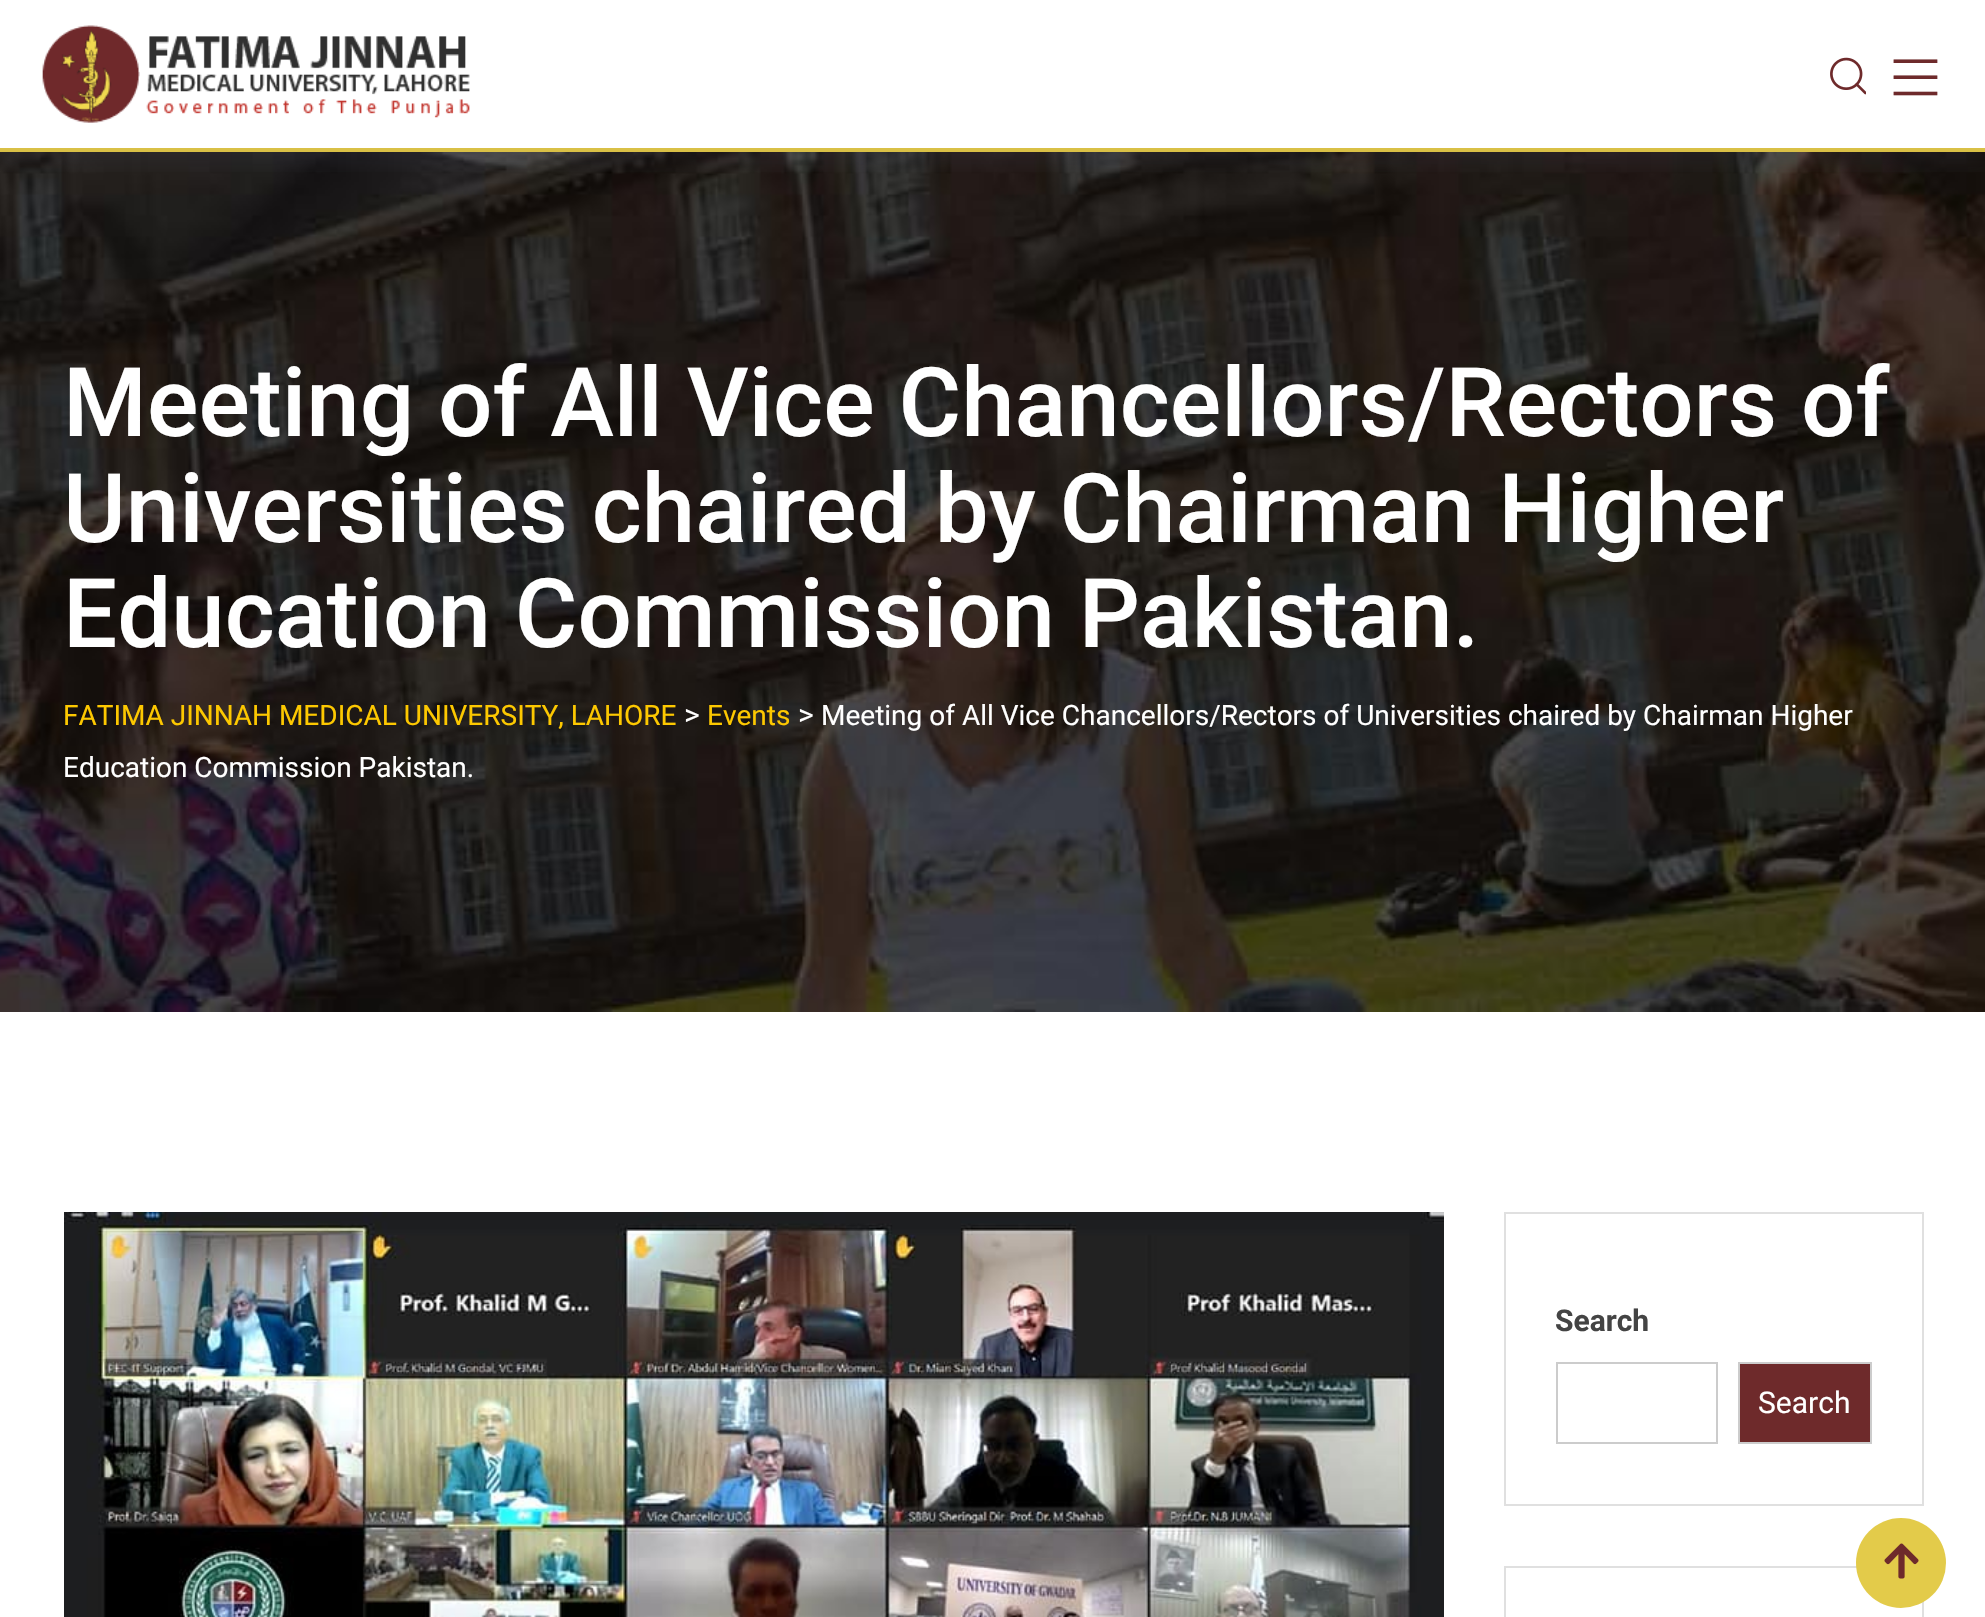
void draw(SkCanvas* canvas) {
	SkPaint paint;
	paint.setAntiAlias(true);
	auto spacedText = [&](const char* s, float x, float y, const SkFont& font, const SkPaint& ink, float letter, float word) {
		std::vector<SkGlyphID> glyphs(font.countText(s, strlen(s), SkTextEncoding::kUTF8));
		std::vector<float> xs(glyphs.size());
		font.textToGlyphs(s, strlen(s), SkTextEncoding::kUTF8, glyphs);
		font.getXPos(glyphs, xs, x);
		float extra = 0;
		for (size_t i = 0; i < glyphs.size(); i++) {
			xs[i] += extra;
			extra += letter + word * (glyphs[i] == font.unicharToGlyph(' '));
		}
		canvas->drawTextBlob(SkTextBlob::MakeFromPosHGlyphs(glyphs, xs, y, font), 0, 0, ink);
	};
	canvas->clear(0xffffffff);
	canvas->drawImageRect(SkImages::DeferredFromEncodedData(SkData::MakeFromFileName("img3.png")), SkRect::MakeXYWH(0, 152, 1985, 860), SkSamplingOptions());
	canvas->save();
	canvas->clipRect(SkRect::MakeXYWH(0, 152, 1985, 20));
	paint.setColor(0x1f576580);
	paint.setMaskFilter(SkMaskFilter::MakeBlur(kNormal_SkBlurStyle, 10));
	canvas->drawRect(SkRect::MakeXYWH(0, 10, 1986, 152), paint);
	paint.setMaskFilter(nullptr);
	canvas->restore();
	paint.setColor(0xffd9c046);
	canvas->drawRect(SkRect::MakeXYWH(0, 148, 1985, 4), paint);
	canvas->drawImageRect(SkImages::DeferredFromEncodedData(SkData::MakeFromFileName("img1.png")), SkRect::MakeXYWH(42, 25, 428, 98), SkSamplingOptions());
	canvas->drawImageRect(SkImages::DeferredFromEncodedData(SkData::MakeFromFileName("img2.png")), SkRect::MakeXYWH(1830, 57, 36, 38), SkSamplingOptions());
	SkFont f1(fontMgr->matchFamilyStyle("Liberation Serif", SkFontStyle::Bold()), 48);
	f1.setSubpixel(true);
	paint.setColor(0xff6e2a2b);
	canvas->save();
	canvas->rotate(90, 1904, 56);
	spacedText("| | |", 1904, 56, f1, paint, -3.25, 0);
	canvas->restore();
	SkFont f2(fontMgr->matchFamilyStyle("Roboto", SkFontStyle(500, SkFontStyle::kNormal_Width, SkFontStyle::kUpright_Slant)), 96);
	f2.setSubpixel(true);
	paint.setColor(0xffffffff);
	canvas->drawString("Meeting of All Vice Chancellors/Rectors of", 63, 436, f2, paint);
	canvas->drawString("Universities chaired by Chairman Higher", 63, 542, f2, paint);
	canvas->drawString("Education Commission Pakistan.", 63, 647, f2, paint);
	SkFont f3(fontMgr->matchFamilyStyle("Roboto", SkFontStyle::Normal()), 28);
	f3.setSubpixel(true);
	paint.setColor(0xfffdc800);
	canvas->drawString("FATIMA JINNAH MEDICAL UNIVERSITY, LAHORE", 63, 725, f3, paint);
	SkFont f4(fontMgr->matchFamilyStyle("Roboto", SkFontStyle::Normal()), 30);
	f4.setSubpixel(true);
	paint.setColor(0xffffffff);
	canvas->drawString(">", 684, 725, f4, paint);
	paint.setColor(0xfffdc800);
	canvas->drawString("Events", 707, 725, f3, paint);
	paint.setColor(0xffffffff);
	canvas->drawString(">", 798, 725, f4, paint);
	canvas->drawString("Meeting of All Vice Chancellors/Rectors of Universities chaired by Chairman Higher", 821, 725, f3, paint);
	canvas->drawString("Education Commission Pakistan.", 63, 777, f3, paint);
	canvas->drawImageRect(SkImages::DeferredFromEncodedData(SkData::MakeFromFileName("img4.png")), SkRect::MakeXYWH(64, 1212, 1380, 405), SkSamplingOptions());
	paint.setStroke(true);
	paint.setStrokeWidth(2);
	paint.setColor(0xffe0e0e0);
	canvas->drawRect(SkRect::MakeXYWH(1505, 1213, 418, 292), paint);
	SkFont f5(fontMgr->matchFamilyStyle("Roboto", SkFontStyle::Bold()), 30);
	f5.setSubpixel(true);
	paint.setStroke(false);
	paint.setColor(0xff444444);
	canvas->drawString("Search", 1555, 1331, f5, paint);
	paint.setStroke(true);
	paint.setColor(0xffcccccc);
	canvas->drawRect(SkRect::MakeXYWH(1557, 1363, 160, 80), paint);
	paint.setStroke(false);
	paint.setColor(0xff6e2a2b);
	canvas->drawRect(SkRect::MakeXYWH(1739, 1363, 132, 80), paint);
	paint.setStroke(true);
	paint.setColor(0xffcccccc);
	canvas->drawRect(SkRect::MakeXYWH(1739, 1363, 132, 80), paint);
	paint.setStroke(false);
	paint.setColor(0xffffffff);
	canvas->drawString("Search", 1758, 1413, f4, paint);
	paint.setStroke(true);
	paint.setColor(0xffe0e0e0);
	canvas->drawRect(SkRect::MakeXYWH(1505, 1567, 418, 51), paint);
	paint.setStroke(false);
	paint.setColor(0xffe3cb4a);
	canvas->drawCircle(1901, 1563, 45, paint);
	canvas->drawImageRect(SkImages::DeferredFromEncodedData(SkData::MakeFromFileName("img5.png")), SkRect::MakeXYWH(1884, 1543, 35, 36), SkSamplingOptions());
}
